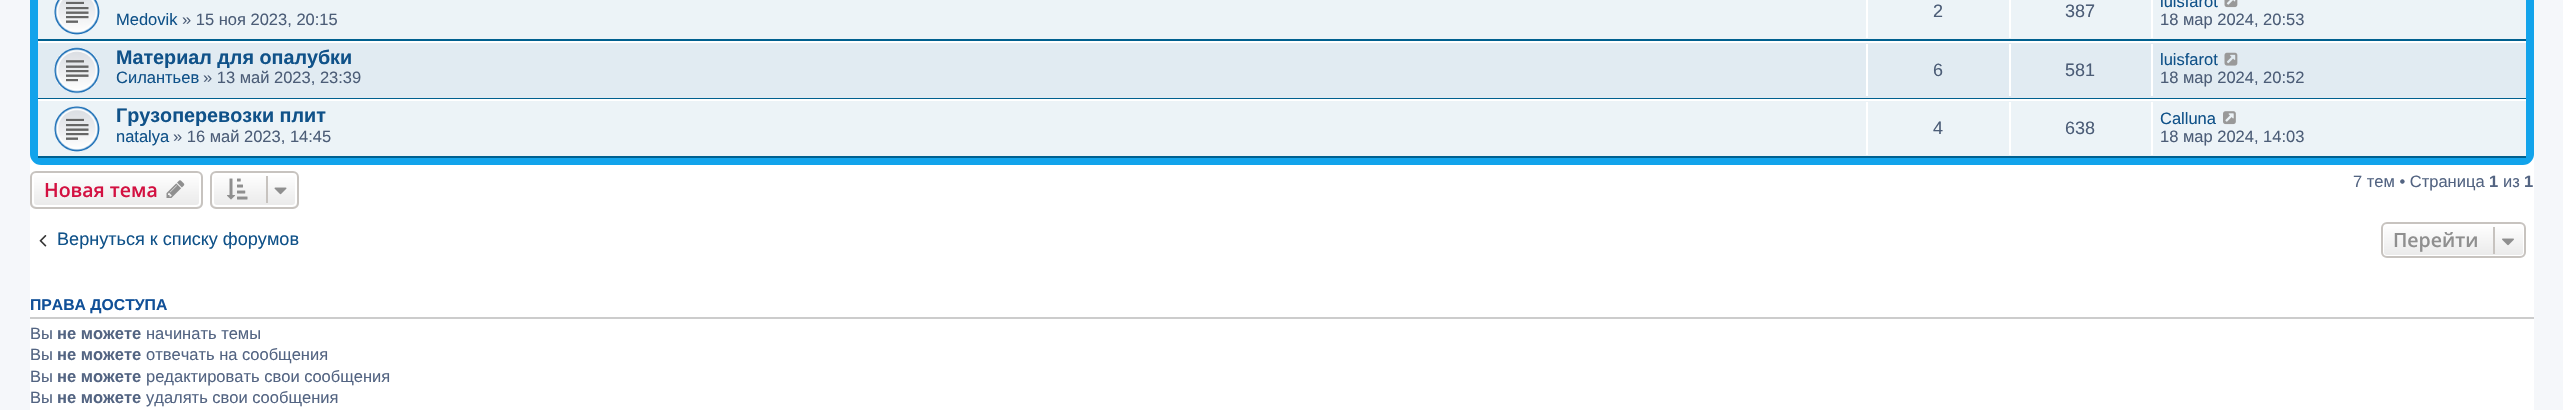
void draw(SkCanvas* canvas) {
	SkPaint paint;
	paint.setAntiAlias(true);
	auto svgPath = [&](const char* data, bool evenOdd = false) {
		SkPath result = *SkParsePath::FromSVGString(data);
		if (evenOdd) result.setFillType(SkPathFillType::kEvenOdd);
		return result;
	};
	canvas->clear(0xfff5f7fa);
	paint.setColor(0xffffffff);
	canvas->drawRect(SkRect::MakeXYWH(30, 154, 2504, 256), paint);
	{
		const SkColor colors[] = {0xff6aceff, 0xff0076b1, 0xff12a3eb, 0xff12a3eb};
		const float stops[] = {0, 0.01, 0.3, 1};
		const SkPoint ends[] = {{1282, -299}, {1282, 165}};
		paint.setShader(SkGradientShader::MakeLinear(ends, colors, stops, 4, SkTileMode::kClamp));
		paint.setAlpha(255);
	}
	canvas->drawRoundRect(SkRect::MakeXYWH(30, -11, 2504, 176), 11, 11, paint);
	paint.setShader(nullptr);
	paint.setColor(0xffecf3f7);
	canvas->drawRect(SkRect::MakeXYWH(38, 0, 2488, 39), paint);
	paint.setColor(0xff00608f);
	canvas->drawRect(SkRect::MakeXYWH(38, 39, 2488, 2), paint);
	canvas->drawImageRect(SkImages::DeferredFromEncodedData(SkData::MakeFromFileName("img1.png")), SkRect::MakeXYWH(54, 0, 46, 35), SkSamplingOptions());
	paint.setColor(0xffffffff);
	canvas->drawRect(SkRect::MakeXYWH(1866, 0, 2, 38), paint);
	SkFont f1(fontMgr->matchFamilyStyle("Liberation Sans", SkFontStyle::Normal()), 18);
	f1.setSubpixel(true);
	paint.setColor(0xff4c5d77);
	canvas->drawString("2", 1933, 17, f1, paint);
	paint.setColor(0xffffffff);
	canvas->drawRect(SkRect::MakeXYWH(2009, 0, 2, 38), paint);
	paint.setColor(0xff4c5d77);
	canvas->drawString("387", 2065, 17, f1, paint);
	paint.setColor(0xffffffff);
	canvas->drawRect(SkRect::MakeXYWH(2151, 0, 2, 38), paint);
	SkFont f2(fontMgr->matchFamilyStyle("Liberation Sans", SkFontStyle::Normal()), 16.5);
	f2.setSubpixel(true);
	paint.setColor(0xff105289);
	canvas->drawString("luisfarot", 2160, 7, f2, paint);
	canvas->drawImageRect(SkImages::DeferredFromEncodedData(SkData::MakeFromFileName("img2.png")), SkRect::MakeXYWH(2224, 0, 14, 8), SkSamplingOptions());
	paint.setColor(0xff4c5d77);
	canvas->drawString("18 мар 2024, 20:53", 2160, 25, f2, paint);
	paint.setColor(0xff105289);
	canvas->drawString("Medovik", 116, 25, f2, paint);
	paint.setColor(0xff4c5d77);
	canvas->drawString("» 15 ноя 2023, 20:15", 182, 25, f2, paint);
	paint.setColor(0xffe1ebf2);
	canvas->drawRect(SkRect::MakeXYWH(38, 43, 2488, 55), paint);
	paint.setColor(0xffffffff);
	canvas->drawRect(SkRect::MakeXYWH(38, 41, 2488, 2), paint);
	paint.setColor(0xff00608f);
	canvas->drawRect(SkRect::MakeXYWH(38, 98, 2488, 1), paint);
	canvas->drawImageRect(SkImages::DeferredFromEncodedData(SkData::MakeFromFileName("img3.png")), SkRect::MakeXYWH(54, 47, 46, 47), SkSamplingOptions());
	SkFont f3(fontMgr->matchFamilyStyle("Liberation Sans", SkFontStyle::Bold()), 19.75);
	f3.setSubpixel(true);
	paint.setColor(0xff105289);
	canvas->drawString("Материал для опалубки", 116, 64, f3, paint);
	canvas->drawString("Силантьев", 116, 83, f2, paint);
	paint.setColor(0xff4c5d77);
	canvas->drawString("» 13 май 2023, 23:39", 203, 83, f2, paint);
	paint.setColor(0xffffffff);
	canvas->drawRect(SkRect::MakeXYWH(1866, 44, 2, 52), paint);
	paint.setColor(0xff4c5d77);
	canvas->drawString("6", 1933, 76, f1, paint);
	paint.setColor(0xffffffff);
	canvas->drawRect(SkRect::MakeXYWH(2009, 44, 2, 52), paint);
	paint.setColor(0xff4c5d77);
	canvas->drawString("581", 2065, 76, f1, paint);
	paint.setColor(0xffffffff);
	canvas->drawRect(SkRect::MakeXYWH(2151, 44, 2, 52), paint);
	paint.setColor(0xff105289);
	canvas->drawString("luisfarot", 2160, 65, f2, paint);
	canvas->drawImageRect(SkImages::DeferredFromEncodedData(SkData::MakeFromFileName("img4.png")), SkRect::MakeXYWH(2224, 52, 14, 14), SkSamplingOptions());
	paint.setColor(0xff4c5d77);
	canvas->drawString("18 мар 2024, 20:52", 2160, 83, f2, paint);
	paint.setColor(0xffecf3f7);
	canvas->drawRect(SkRect::MakeXYWH(38, 101, 2488, 55), paint);
	paint.setColor(0xffffffff);
	canvas->drawRect(SkRect::MakeXYWH(38, 99, 2488, 2), paint);
	paint.setColor(0xff00608f);
	canvas->drawRect(SkRect::MakeXYWH(38, 156, 2488, 2), paint);
	canvas->drawImageRect(SkImages::DeferredFromEncodedData(SkData::MakeFromFileName("img5.png")), SkRect::MakeXYWH(54, 106, 46, 46), SkSamplingOptions());
	paint.setColor(0xff105289);
	canvas->drawString("Грузоперевозки плит", 116, 122, f3, paint);
	canvas->drawString("natalya", 116, 142, f2, paint);
	paint.setColor(0xff4c5d77);
	canvas->drawString("» 16 май 2023, 14:45", 173, 142, f2, paint);
	paint.setColor(0xffffffff);
	canvas->drawRect(SkRect::MakeXYWH(1866, 102, 2, 53), paint);
	paint.setColor(0xff4c5d77);
	canvas->drawString("4", 1933, 134, f1, paint);
	paint.setColor(0xffffffff);
	canvas->drawRect(SkRect::MakeXYWH(2009, 102, 2, 53), paint);
	paint.setColor(0xff4c5d77);
	canvas->drawString("638", 2065, 134, f1, paint);
	paint.setColor(0xffffffff);
	canvas->drawRect(SkRect::MakeXYWH(2151, 102, 2, 53), paint);
	paint.setColor(0xff105289);
	canvas->drawString("Calluna", 2160, 124, f2, paint);
	canvas->drawImageRect(SkImages::DeferredFromEncodedData(SkData::MakeFromFileName("img6.png")), SkRect::MakeXYWH(2223, 111, 13, 14), SkSamplingOptions());
	paint.setColor(0xff4c5d77);
	canvas->drawString("18 мар 2024, 14:03", 2160, 142, f2, paint);
	canvas->save();
	canvas->clipPath(svgPath("M36 171H197C200.5 171 203 173.5 203 177V203C203 206.5 200.5 209 197 209H36C32.5 209 30 206.5 30 203V177C30 173.5 32.5 171 36 171Z"), true);
	{
		const SkColor colors[] = {0xffffffff, 0xffe9e9e9};
		const float stops[] = {0, 1};
		const SkPoint ends[] = {{116, 173}, {116, 207}};
		paint.setShader(SkGradientShader::MakeLinear(ends, colors, stops, 2, SkTileMode::kClamp));
		paint.setAlpha(255);
	}
	canvas->drawRect(SkRect::MakeXYWH(30, 173, 173, 34), paint);
	canvas->restore();
	paint.setStroke(true);
	paint.setStrokeWidth(2);
	paint.setShader(nullptr);
	paint.setColor(0xffffffff);
	canvas->drawRoundRect(SkRect::MakeXYWH(33, 174, 167, 32), 4, 4, paint);
	paint.setColor(0xffc7c3bf);
	canvas->drawRoundRect(SkRect::MakeXYWH(31, 172, 171, 36), 5, 5, paint);
	SkFont f4(fontMgr->matchFamilyStyle("Open Sans", SkFontStyle(600, SkFontStyle::kNormal_Width, SkFontStyle::kUpright_Slant)), 19.5);
	f4.setSubpixel(true);
	paint.setStroke(false);
	paint.setColor(0xffd31141);
	canvas->drawString("Новая тема", 44, 197, f4, paint);
	canvas->drawImageRect(SkImages::DeferredFromEncodedData(SkData::MakeFromFileName("img7.png")), SkRect::MakeXYWH(166, 180, 19, 18), SkSamplingOptions());
	canvas->save();
	canvas->clipPath(svgPath("M216 171H293C296.5 171 299 173.5 299 177V203C299 206.5 296.5 209 293 209H216C212.5 209 210 206.5 210 203V177C210 173.5 212.5 171 216 171Z"), true);
	{
		const SkColor colors[] = {0xffffffff, 0xffe9e9e9};
		const float stops[] = {0, 1};
		const SkPoint ends[] = {{254, 173}, {254, 207}};
		paint.setShader(SkGradientShader::MakeLinear(ends, colors, stops, 2, SkTileMode::kClamp));
		paint.setAlpha(255);
	}
	canvas->drawRect(SkRect::MakeXYWH(210, 173, 89, 34), paint);
	canvas->restore();
	paint.setStroke(true);
	paint.setShader(nullptr);
	paint.setColor(0xffffffff);
	canvas->drawRoundRect(SkRect::MakeXYWH(213, 174, 83, 32), 4, 4, paint);
	paint.setColor(0xffc7c3bf);
	canvas->drawRoundRect(SkRect::MakeXYWH(211, 172, 87, 36), 5, 5, paint);
	canvas->drawImageRect(SkImages::DeferredFromEncodedData(SkData::MakeFromFileName("img8.png")), SkRect::MakeXYWH(227, 178, 21, 22), SkSamplingOptions());
	paint.setStroke(false);
	canvas->drawRect(SkRect::MakeXYWH(266, 176, 2, 27), paint);
	canvas->drawImageRect(SkImages::DeferredFromEncodedData(SkData::MakeFromFileName("img9.png")), SkRect::MakeXYWH(274, 187, 13, 8), SkSamplingOptions());
	paint.setColor(0xff536482);
	canvas->drawString("7 тем • Страница", 2353, 187, f2, paint);
	SkFont f5(fontMgr->matchFamilyStyle("Liberation Sans", SkFontStyle::Bold()), 16.5);
	f5.setSubpixel(true);
	canvas->drawString("1", 2489, 187, f5, paint);
	canvas->drawString("из", 2503, 187, f2, paint);
	canvas->drawString("1", 2524, 187, f5, paint);
	canvas->drawImageRect(SkImages::DeferredFromEncodedData(SkData::MakeFromFileName("img10.png")), SkRect::MakeXYWH(39, 235, 8, 12), SkSamplingOptions());
	SkFont f6(fontMgr->matchFamilyStyle("Liberation Sans", SkFontStyle::Normal()), 18.1);
	f6.setSubpixel(true);
	paint.setColor(0xff105289);
	canvas->drawString("Вернуться к списку форумов", 57, 245, f6, paint);
	canvas->save();
	canvas->clipPath(svgPath("M2387 222H2520C2523.5 222 2526 224.5 2526 228V252C2526 255.5 2523.5 258 2520 258H2387C2383.5 258 2381 255.5 2381 252V228C2381 224.5 2383.5 222 2387 222Z"), true);
	{
		const SkColor colors[] = {0xffffffff, 0xffe9e9e9};
		const float stops[] = {0, 1};
		const SkPoint ends[] = {{2453, 224}, {2453, 257}};
		paint.setShader(SkGradientShader::MakeLinear(ends, colors, stops, 2, SkTileMode::kClamp));
		paint.setAlpha(255);
	}
	canvas->drawRect(SkRect::MakeXYWH(2381, 224, 145, 33), paint);
	canvas->restore();
	paint.setStroke(true);
	paint.setShader(nullptr);
	paint.setColor(0xffffffff);
	canvas->drawRoundRect(SkRect::MakeXYWH(2383, 225, 141, 31), 4, 4, paint);
	paint.setColor(0xffc7c3bf);
	canvas->drawRoundRect(SkRect::MakeXYWH(2382, 223, 143, 34), 5, 5, paint);
	paint.setStroke(false);
	paint.setColor(0xff8f8f8f);
	canvas->drawString("Перейти", 2393, 247, f4, paint);
	paint.setColor(0xffc7c3bf);
	canvas->drawRect(SkRect::MakeXYWH(2493, 227, 2, 27), paint);
	canvas->drawImageRect(SkImages::DeferredFromEncodedData(SkData::MakeFromFileName("img11.png")), SkRect::MakeXYWH(2502, 238, 12, 8), SkSamplingOptions());
	paint.setColor(0xffcccccc);
	canvas->drawRect(SkRect::MakeXYWH(30, 317, 2504, 2), paint);
	SkFont f7(fontMgr->matchFamilyStyle("Liberation Sans", SkFontStyle::Bold()), 15.75);
	f7.setSubpixel(true);
	paint.setColor(0xff115098);
	canvas->drawString("ПРАВА ДОСТУПА", 30, 310, f7, paint);
	paint.setColor(0xff536482);
	canvas->drawString("Вы", 30, 339, f2, paint);
	canvas->drawString("не можете", 57, 339, f5, paint);
	canvas->drawString("начинать темы", 146, 339, f2, paint);
	canvas->drawString("Вы", 30, 360, f2, paint);
	canvas->drawString("не можете", 57, 360, f5, paint);
	canvas->drawString("отвечать на сообщения", 146, 360, f2, paint);
	canvas->drawString("Вы", 30, 382, f2, paint);
	canvas->drawString("не можете", 57, 382, f5, paint);
	canvas->drawString("редактировать свои сообщения", 146, 382, f2, paint);
	canvas->drawString("Вы", 30, 403, f2, paint);
	canvas->drawString("не можете", 57, 403, f5, paint);
	canvas->drawString("удалять свои сообщения", 146, 403, f2, paint);
}
